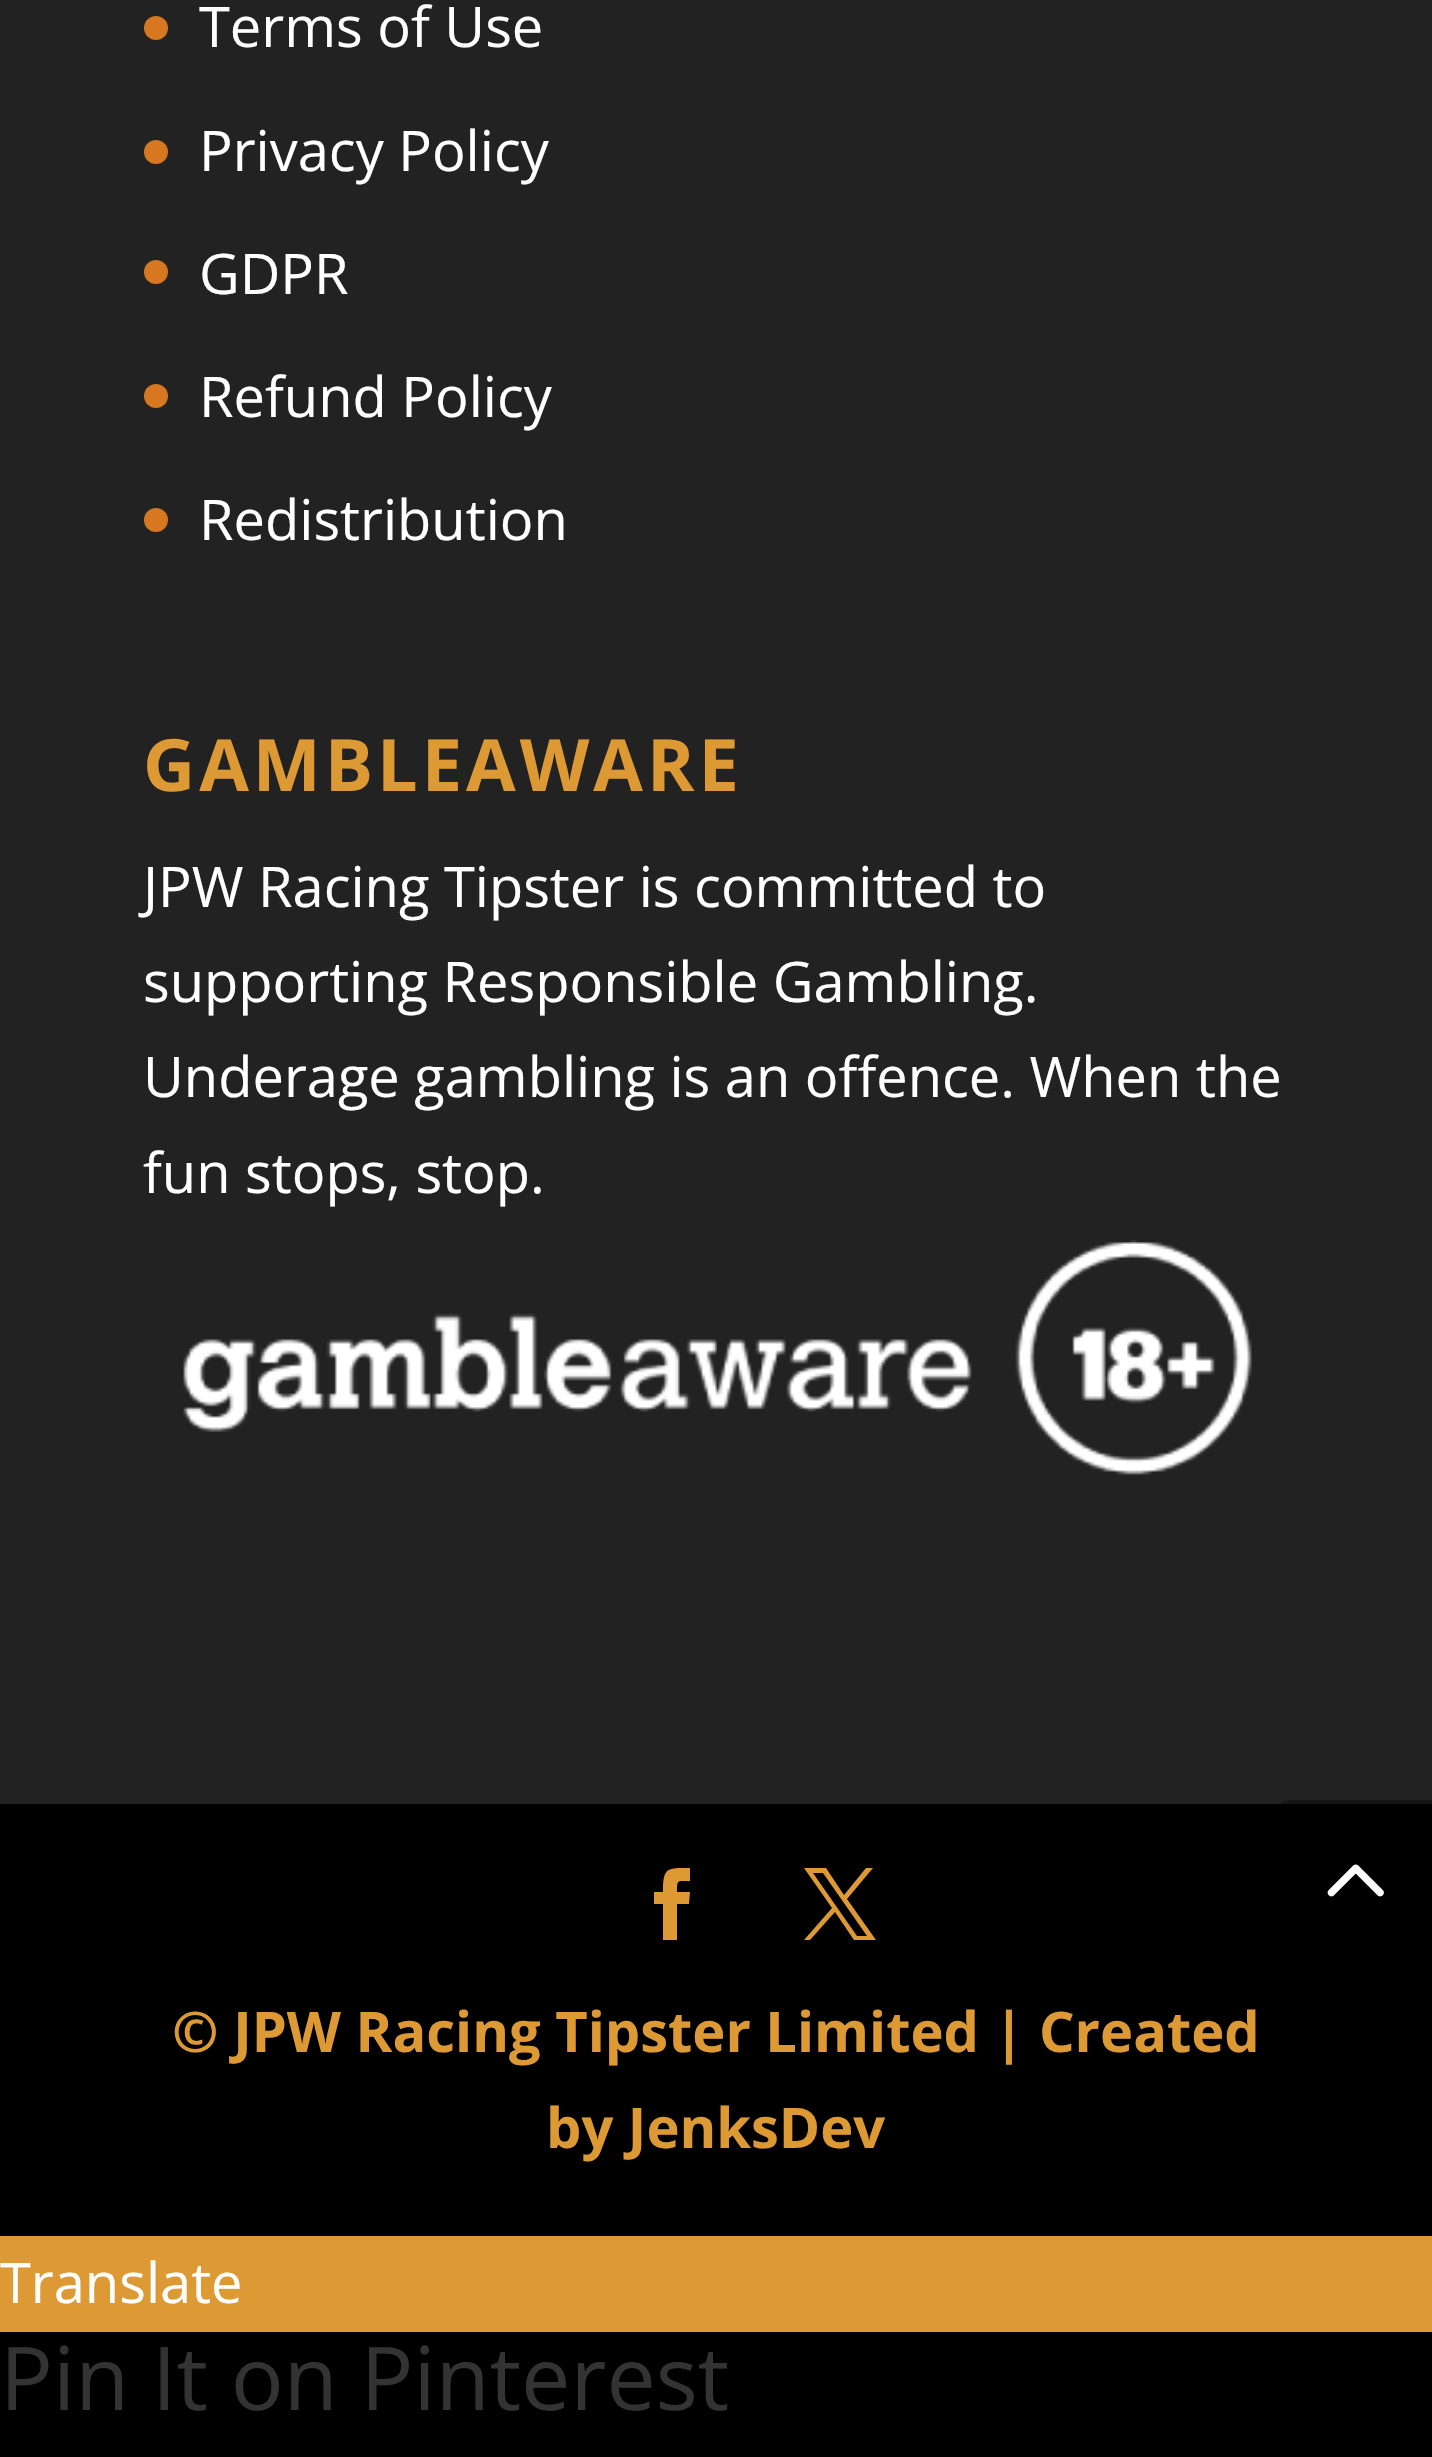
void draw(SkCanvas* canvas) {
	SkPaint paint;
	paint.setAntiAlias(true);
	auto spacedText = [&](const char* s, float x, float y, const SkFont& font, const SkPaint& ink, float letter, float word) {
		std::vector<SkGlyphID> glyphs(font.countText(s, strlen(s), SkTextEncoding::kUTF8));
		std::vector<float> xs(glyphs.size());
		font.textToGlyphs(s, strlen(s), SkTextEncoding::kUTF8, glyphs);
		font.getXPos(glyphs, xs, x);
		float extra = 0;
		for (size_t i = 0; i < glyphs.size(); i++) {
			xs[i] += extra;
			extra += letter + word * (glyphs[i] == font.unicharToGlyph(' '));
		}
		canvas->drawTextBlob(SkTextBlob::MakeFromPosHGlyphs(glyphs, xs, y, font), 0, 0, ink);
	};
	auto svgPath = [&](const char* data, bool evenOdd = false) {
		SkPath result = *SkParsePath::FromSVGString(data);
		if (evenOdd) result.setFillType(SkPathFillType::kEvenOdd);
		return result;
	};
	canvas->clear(0xff000000);
	paint.setColor(0xff222222);
	canvas->drawRect(SkRect::MakeXYWH(0, 0, 1432, 1804), paint);
	paint.setColor(0xffd77820);
	canvas->drawCircle(156, 28, 12, paint);
	SkFont f1(fontMgr->matchFamilyStyle("Open Sans", SkFontStyle::Normal()), 56);
	f1.setSubpixel(true);
	paint.setColor(0xffffffff);
	canvas->drawString("Terms of Use", 199, 47, f1, paint);
	paint.setColor(0xffd77820);
	canvas->drawCircle(156, 152, 12, paint);
	paint.setColor(0xffffffff);
	canvas->drawString("Privacy Policy", 199, 171, f1, paint);
	paint.setColor(0xffd77820);
	canvas->drawCircle(156, 272, 12, paint);
	paint.setColor(0xffffffff);
	canvas->drawString("GDPR", 199, 294, f1, paint);
	paint.setColor(0xffd77820);
	canvas->drawCircle(156, 396, 12, paint);
	paint.setColor(0xffffffff);
	canvas->drawString("Refund Policy", 199, 417, f1, paint);
	paint.setColor(0xffd77820);
	canvas->drawCircle(156, 520, 12, paint);
	paint.setColor(0xffffffff);
	canvas->drawString("Redistribution", 199, 540, f1, paint);
	SkFont f2(fontMgr->matchFamilyStyle("Open Sans", SkFontStyle::Bold()), 72);
	f2.setSubpixel(true);
	paint.setColor(0xffdd9933);
	spacedText("GAMBLEAWARE", 143, 791, f2, paint, 4, 0);
	paint.setColor(0xffffffff);
	canvas->drawString("JPW Racing Tipster is committed to", 143, 907, f1, paint);
	canvas->drawString("supporting Responsible Gambling.", 143, 1002, f1, paint);
	canvas->drawString("Underage gambling is an offence. When the", 143, 1097, f1, paint);
	canvas->drawString("fun stops, stop.", 143, 1193, f1, paint);
	canvas->drawImageRect(SkImages::DeferredFromEncodedData(SkData::MakeFromFileName("img1.png")), SkRect::MakeXYWH(183, 1239, 1069, 236), SkSamplingOptions());
	paint.setColor(0xffdd9933);
	canvas->drawPath(svgPath("M663 1940H677V1904H689L690 1892H677C677 1879 677 1881 690 1881V1868C667 1868 663 1867 663 1892H654V1904H663Z"), paint);
	canvas->drawPath(svgPath("M804 1868L832 1908L804 1940H810L835 1912L854 1940H876L847 1899L873 1868H866L844 1895L826 1868ZM813 1873H823L867 1936H857Z"), paint);
	SkFont f3(fontMgr->matchFamilyStyle("Open Sans", SkFontStyle::Bold()), 56);
	f3.setSubpixel(true);
	canvas->drawString("© JPW Racing Tipster Limited | Created", 172, 2052, f3, paint);
	canvas->drawString("by JenksDev", 546, 2148, f3, paint);
	paint.setColor(0x66000000);
	canvas->drawPath(svgPath("M1292 1800H1432V1960H1292C1281 1960 1272 1951 1272 1940V1820C1272 1809 1281 1800 1292 1800Z"), paint);
	canvas->drawImageRect(SkImages::DeferredFromEncodedData(SkData::MakeFromFileName("img2.png")), SkRect::MakeXYWH(1327, 1864, 57, 33), SkSamplingOptions());
	paint.setColor(0xffdd9933);
	canvas->drawRect(SkRect::MakeXYWH(0, 2236, 1432, 96), paint);
	paint.setColor(0xffffffff);
	canvas->drawString("Translate", 0, 2303, f1, paint);
	SkFont f4(fontMgr->matchFamilyStyle("Open Sans", SkFontStyle::Normal()), 88);
	f4.setSubpixel(true);
	paint.setColor(0xff333333);
	canvas->drawString("Pin It on Pinterest", 0, 2410, f4, paint);
}
